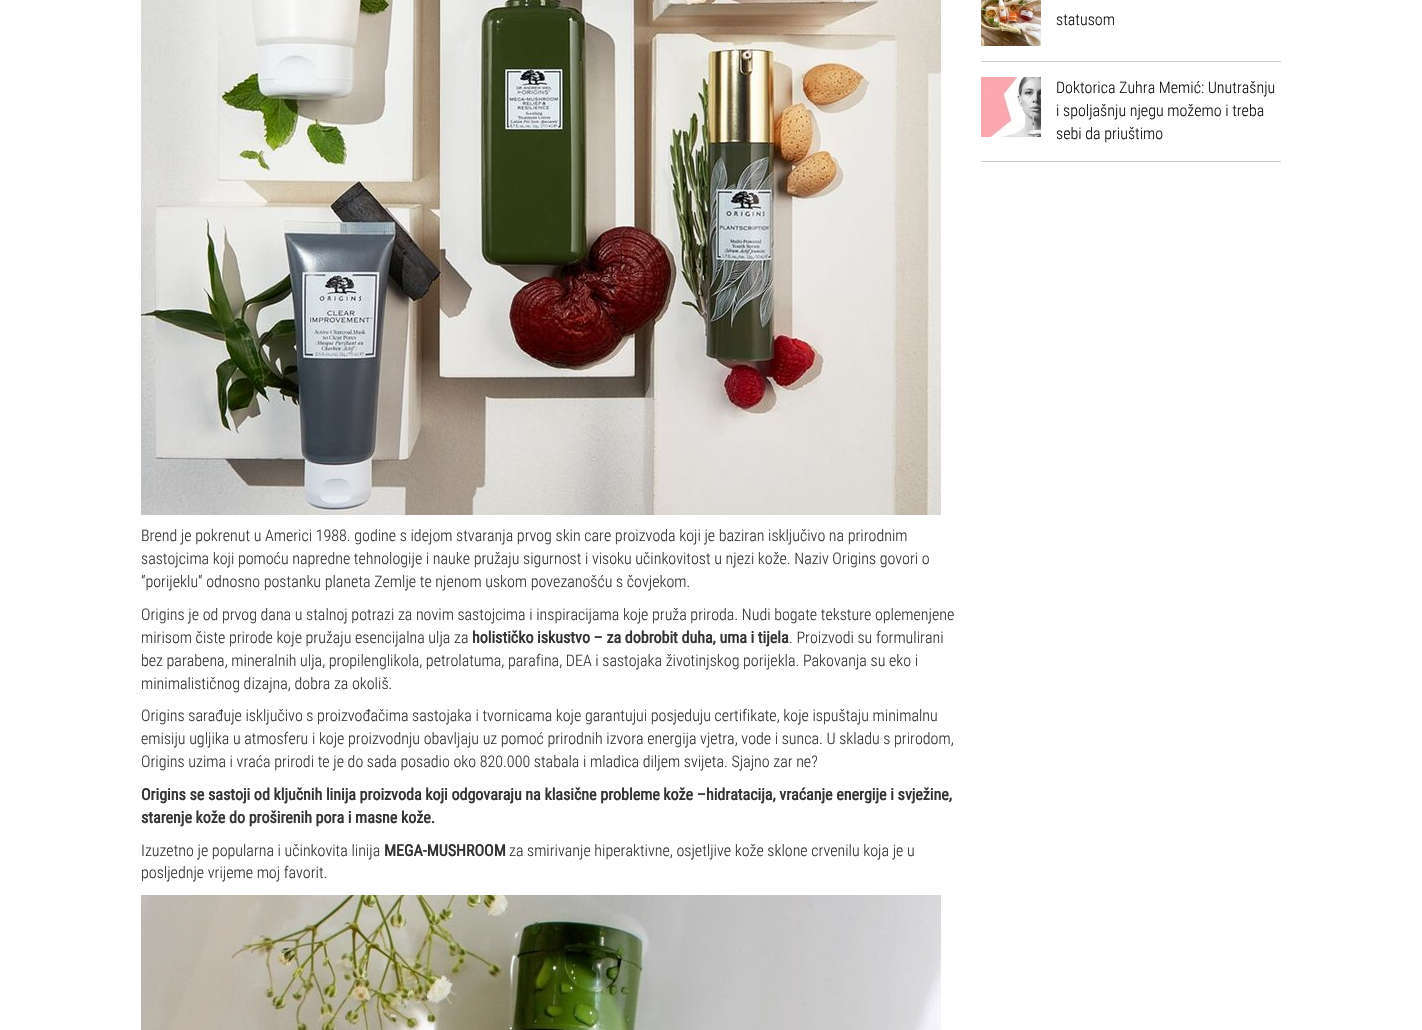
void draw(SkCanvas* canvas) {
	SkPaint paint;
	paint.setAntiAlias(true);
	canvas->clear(0xffffffff);
	paint.setColor(0xffcccccc);
	canvas->drawRect(SkRect::MakeXYWH(981, 61, 300, 1), paint);
	canvas->drawImageRect(SkImages::DeferredFromEncodedData(SkData::MakeFromFileName("img1.png")), SkRect::MakeXYWH(981, 0, 60, 46), SkSamplingOptions());
	SkFont f1(fontMgr->matchFamilyStyle("Roboto Condensed", SkFontStyle(300, SkFontStyle::kNormal_Width, SkFontStyle::kUpright_Slant)), 16);
	f1.setSubpixel(true);
	paint.setColor(0xff101010);
	canvas->drawString("statusom", 1056, 25, f1, paint);
	paint.setColor(0xffcccccc);
	canvas->drawRect(SkRect::MakeXYWH(981, 161, 300, 1), paint);
	canvas->drawImageRect(SkImages::DeferredFromEncodedData(SkData::MakeFromFileName("img2.png")), SkRect::MakeXYWH(981, 77, 60, 60), SkSamplingOptions());
	paint.setColor(0xff101010);
	canvas->drawString("Doktorica Zuhra Memić: Unutrašnju", 1056, 93, f1, paint);
	canvas->drawString("i spoljašnju njegu možemo i treba", 1056, 116, f1, paint);
	canvas->drawString("sebi da priuštimo", 1056, 139, f1, paint);
	canvas->drawImageRect(SkImages::DeferredFromEncodedData(SkData::MakeFromFileName("img3.png")), SkRect::MakeXYWH(141, 0, 800, 515), SkSamplingOptions());
	paint.setColor(0xff333333);
	canvas->drawString("Brend je pokrenut u Americi 1988. godine s idejom stvaranja prvog skin care proizvoda koji je baziran isključivo na prirodnim", 141, 541, f1, paint);
	canvas->drawString("sastojcima koji pomoću napredne tehnologije i nauke pružaju sigurnost i visoku učinkovitost u njezi kože. Naziv Origins govori o", 141, 564, f1, paint);
	canvas->drawString("“porijeklu“ odnosno postanku planeta Zemlje te njenom uskom povezanošću s čovjekom.", 141, 587, f1, paint);
	canvas->drawString("Origins je od prvog dana u stalnoj potrazi za novim sastojcima i inspiracijama koje pruža priroda. Nudi bogate teksture oplemenjene", 141, 620, f1, paint);
	canvas->drawString("mirisom čiste prirode koje pružaju esencijalna ulja za", 141, 643, f1, paint);
	SkFont f2(fontMgr->matchFamilyStyle("Roboto Condensed", SkFontStyle::Bold()), 16);
	f2.setSubpixel(true);
	canvas->drawString("holističko iskustvo – za dobrobit duha, uma i tijela", 472, 643, f2, paint);
	canvas->drawString(". Proizvodi su formulirani", 789, 643, f1, paint);
	canvas->drawString("bez parabena, mineralnih ulja, propilenglikola, petrolatuma, parafina, DEA i sastojaka životinjskog porijekla. Pakovanja su eko i", 141, 666, f1, paint);
	canvas->drawString("minimalističnog dizajna, dobra za okoliš.", 141, 689, f1, paint);
	canvas->drawString("Origins sarađuje isključivo s proizvođačima sastojaka i tvornicama koje garantujui posjeduju certifikate, koje ispuštaju minimalnu", 141, 721, f1, paint);
	canvas->drawString("emisiju ugljika u atmosferu i koje proizvodnju obavljaju uz pomoć prirodnih izvora energija vjetra, vode i sunca. U skladu s prirodom,", 141, 744, f1, paint);
	canvas->drawString("Origins uzima i vraća prirodi te je do sada posadio oko 820.000 stabala i mladica diljem svijeta. Sjajno zar ne?", 141, 767, f1, paint);
	canvas->drawString("Origins se sastoji od ključnih linija proizvoda koji odgovaraju na klasične probleme kože –hidratacija, vraćanje energije i svježine,", 141, 800, f2, paint);
	canvas->drawString("starenje kože do proširenih pora i masne kože.", 141, 823, f2, paint);
	canvas->drawString("Izuzetno je popularna i učinkovita linija", 141, 856, f1, paint);
	canvas->drawString("MEGA-MUSHROOM", 384, 856, f2, paint);
	canvas->drawString("za smirivanje hiperaktivne, osjetljive kože sklone crvenilu koja je u", 509, 856, f1, paint);
	canvas->drawString("posljednje vrijeme moj favorit.", 141, 878, f1, paint);
	canvas->drawImageRect(SkImages::DeferredFromEncodedData(SkData::MakeFromFileName("img4.png")), SkRect::MakeXYWH(141, 895, 800, 135), SkSamplingOptions());
}
